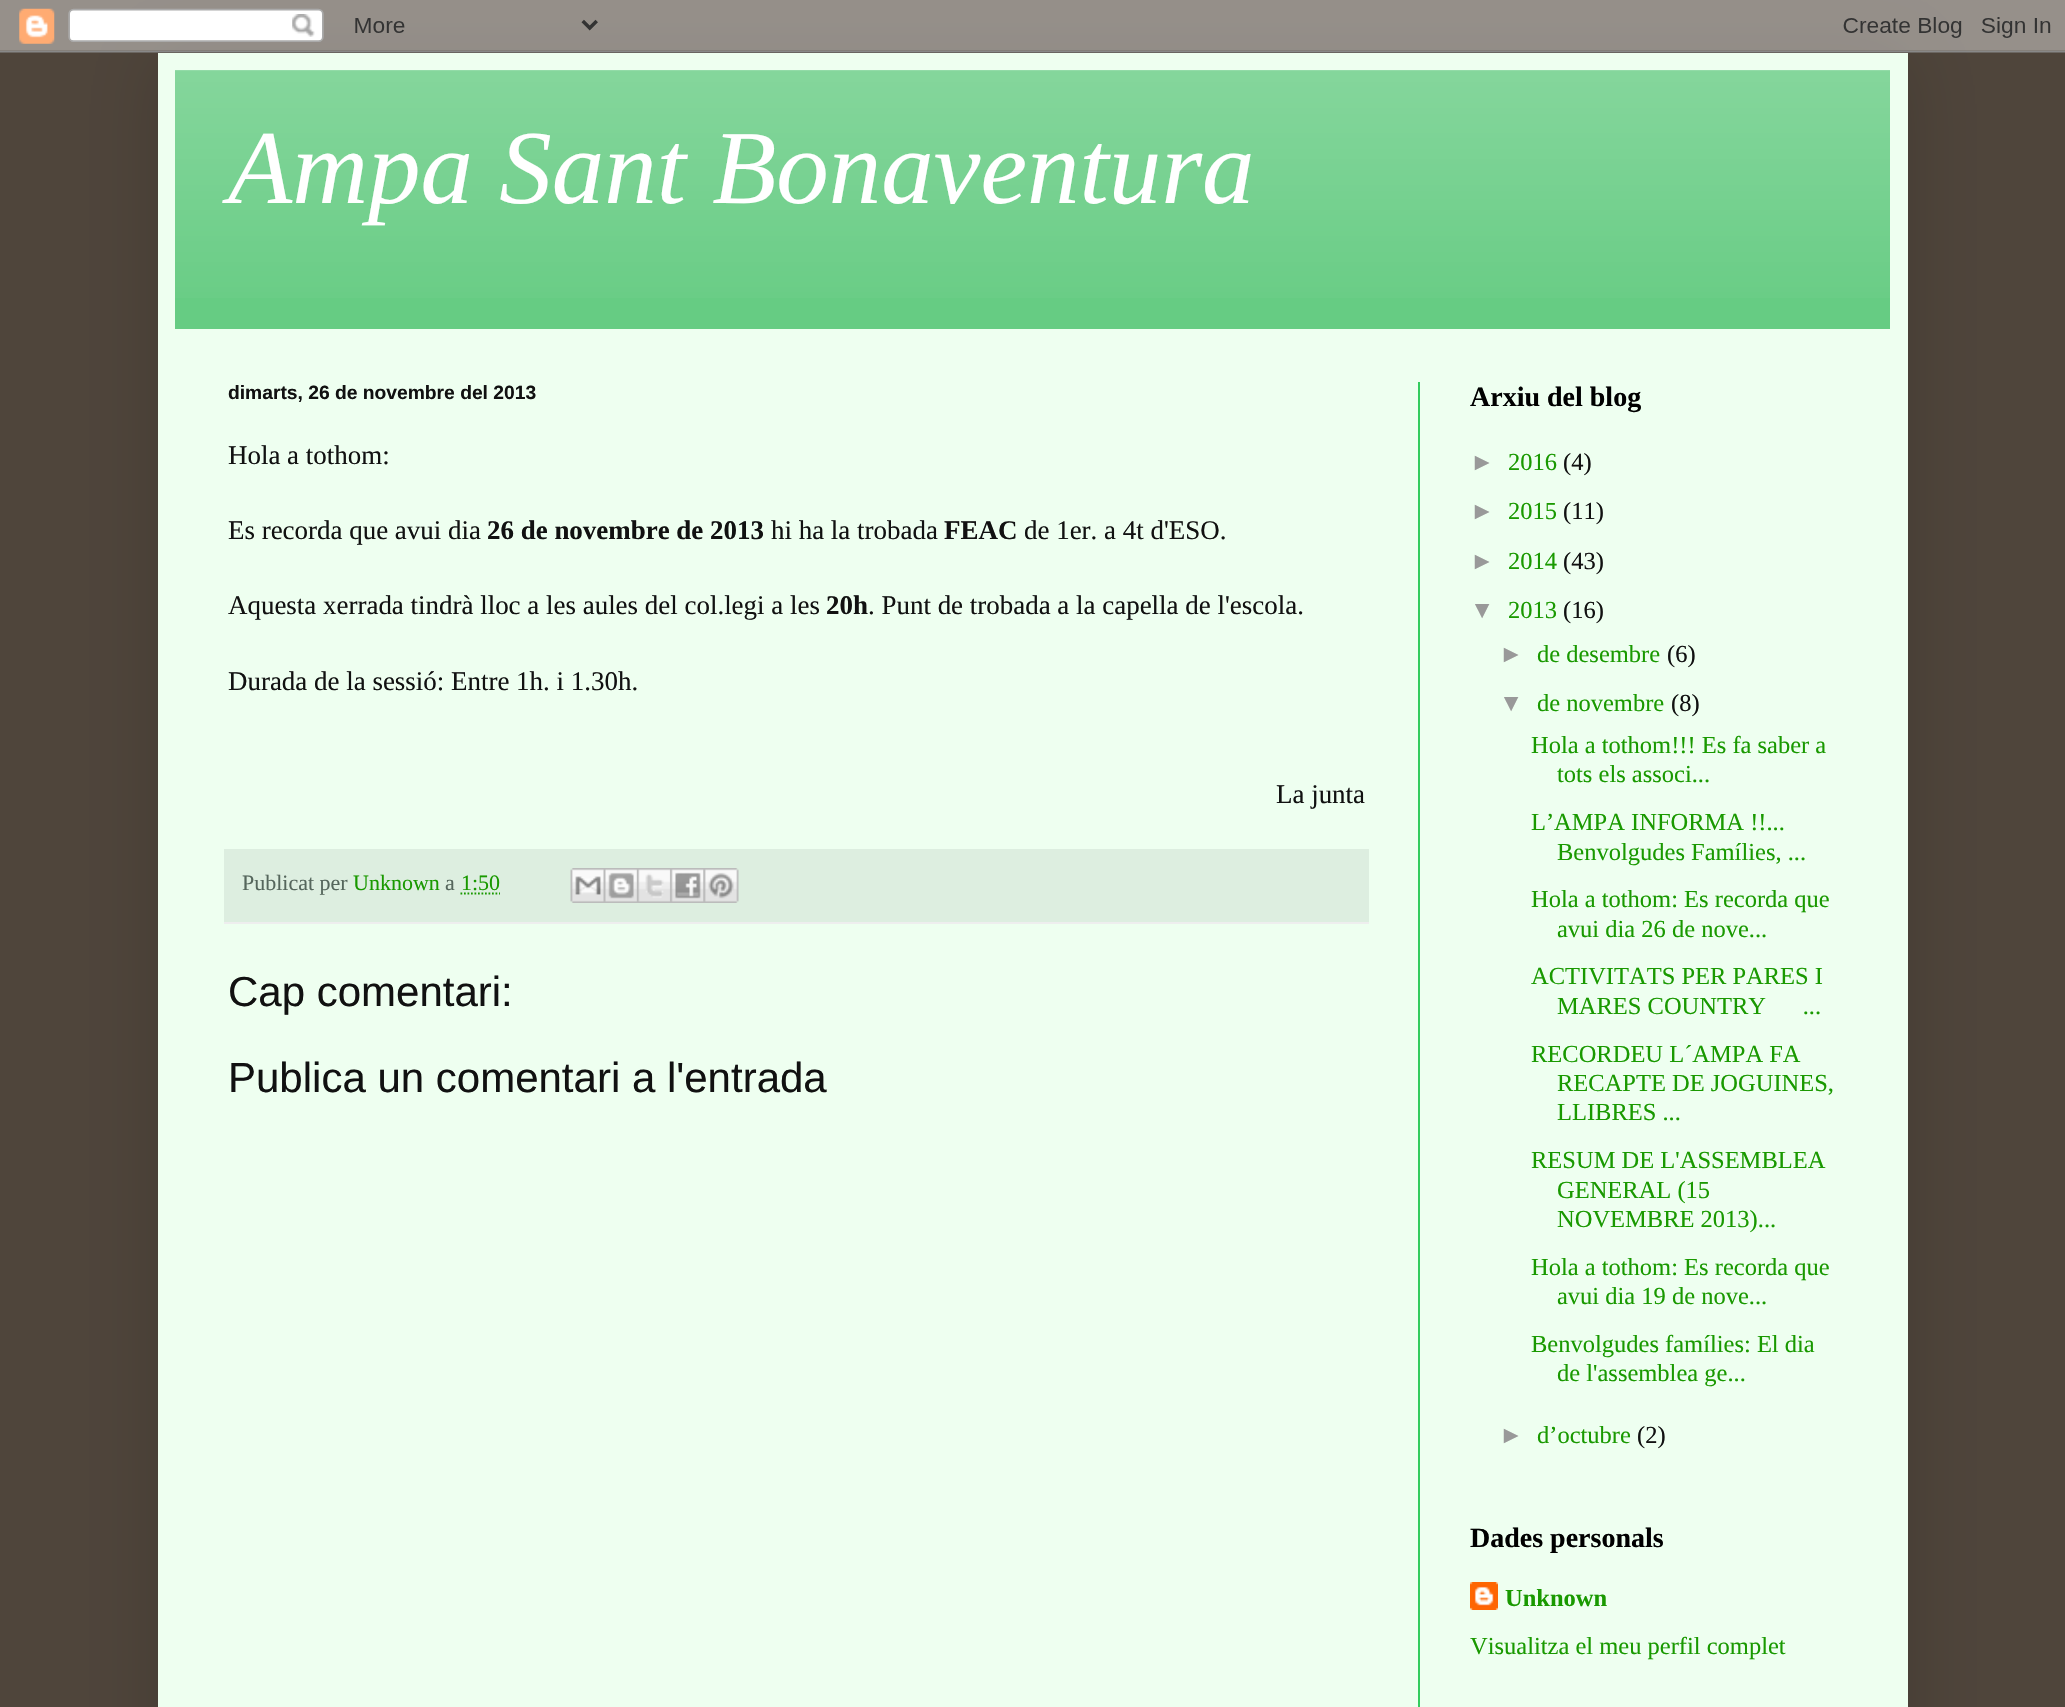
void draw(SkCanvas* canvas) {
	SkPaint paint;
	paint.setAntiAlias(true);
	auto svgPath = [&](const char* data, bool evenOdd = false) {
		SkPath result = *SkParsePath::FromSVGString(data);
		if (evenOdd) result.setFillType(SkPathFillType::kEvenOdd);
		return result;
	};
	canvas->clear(0xff4f453b);
	paint.setColor(0x26000000);
	paint.setMaskFilter(SkMaskFilter::MakeBlur(kNormal_SkBlurStyle, 35));
	canvas->drawRect(SkRect::MakeXYWH(158, 53, 1750, 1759), paint);
	paint.setMaskFilter(nullptr);
	canvas->drawImageRect(SkImages::DeferredFromEncodedData(SkData::MakeFromFileName("img1.png")), SkRect::MakeXYWH(0, 0, 2065, 53), SkSamplingOptions());
	paint.setColor(0xffeefff0);
	canvas->drawRect(SkRect::MakeXYWH(158, 53, 1750, 1654), paint);
	paint.setColor(0xff66cc83);
	canvas->drawRect(SkRect::MakeXYWH(175, 70, 1715, 259), paint);
	canvas->drawImageRect(SkImages::DeferredFromEncodedData(SkData::MakeFromFileName("img2.png")), SkRect::MakeXYWH(175, 70, 1715, 228), SkSamplingOptions());
	SkFont f1(fontMgr->matchFamilyStyle("Liberation Serif", SkFontStyle::Italic()), 105);
	f1.setSubpixel(true);
	paint.setColor(0xffffffff);
	canvas->drawString("Ampa Sant Bonaventura", 228, 203, f1, paint);
	paint.setColor(0xff33cc5e);
	canvas->drawRect(SkRect::MakeXYWH(1418, 382, 2, 1325), paint);
	SkFont f2(fontMgr->matchFamilyStyle("Liberation Sans", SkFontStyle::Bold()), 19.25);
	f2.setSubpixel(true);
	paint.setColor(0xff111111);
	canvas->drawString("dimarts, 26 de novembre del 2013", 228, 399, f2, paint);
	SkFont f3(fontMgr->matchFamilyStyle("Liberation Serif", SkFontStyle::Normal()), 26.95);
	f3.setSubpixel(true);
	canvas->drawString("Hola a tothom:", 228, 464, f3, paint);
	canvas->drawString("Es recorda que avui dia", 228, 539, f3, paint);
	SkFont f4(fontMgr->matchFamilyStyle("Liberation Serif", SkFontStyle::Bold()), 26.95);
	f4.setSubpixel(true);
	canvas->drawString("26 de novembre de 2013", 487, 539, f4, paint);
	canvas->drawString("hi ha la trobada", 771, 539, f3, paint);
	canvas->drawString("FEAC", 944, 539, f4, paint);
	canvas->drawString("de 1er. a 4t d'ESO.", 1024, 539, f3, paint);
	canvas->drawString("Aquesta xerrada tindrà lloc a les aules del col.legi a les", 228, 614, f3, paint);
	canvas->drawString("20h", 826, 614, f4, paint);
	canvas->drawString(". Punt de trobada a la capella de l'escola.", 868, 614, f3, paint);
	canvas->drawString("Durada de la sessió: Entre 1h. i 1.30h.", 228, 690, f3, paint);
	canvas->drawString("La junta", 1276, 803, f3, paint);
	paint.setColor(0xffddeee0);
	canvas->drawRect(SkRect::MakeXYWH(224, 849, 1145, 73), paint);
	paint.setColor(0xffeeeeee);
	canvas->drawRect(SkRect::MakeXYWH(224, 922, 1145, 2), paint);
	SkFont f5(fontMgr->matchFamilyStyle("Liberation Serif", SkFontStyle::Normal()), 22);
	f5.setSubpixel(true);
	paint.setColor(0xff55665c);
	canvas->drawString("Publicat per", 242, 890, f5, paint);
	paint.setColor(0xff199900);
	canvas->drawString("Unknown", 353, 890, f5, paint);
	paint.setColor(0xff55665c);
	canvas->drawString("a", 445, 890, f5, paint);
	paint.setColor(0xff199900);
	canvas->drawString("1:50", 461, 890, f5, paint);
	paint.setStroke(true);
	paint.setStrokeWidth(1.8);
	paint.setPathEffect(SkDashPathEffect::Make({{1.75f, 1.75f}}, 0));
	canvas->drawPath(svgPath("M460.5 893.5H500"), paint);
	paint.setPathEffect(nullptr);
	canvas->drawImageRect(SkImages::DeferredFromEncodedData(SkData::MakeFromFileName("img3.png")), SkRect::MakeXYWH(570, 868, 34, 35), SkSamplingOptions());
	canvas->drawImageRect(SkImages::DeferredFromEncodedData(SkData::MakeFromFileName("img4.png")), SkRect::MakeXYWH(603, 868, 34, 35), SkSamplingOptions());
	canvas->drawImageRect(SkImages::DeferredFromEncodedData(SkData::MakeFromFileName("img5.png")), SkRect::MakeXYWH(637, 868, 34, 35), SkSamplingOptions());
	canvas->drawImageRect(SkImages::DeferredFromEncodedData(SkData::MakeFromFileName("img6.png")), SkRect::MakeXYWH(670, 868, 34, 35), SkSamplingOptions());
	canvas->drawImageRect(SkImages::DeferredFromEncodedData(SkData::MakeFromFileName("img7.png")), SkRect::MakeXYWH(703, 868, 36, 35), SkSamplingOptions());
	SkFont f6(fontMgr->matchFamilyStyle("Liberation Sans", SkFontStyle::Normal()), 42);
	f6.setSubpixel(true);
	paint.setStroke(false);
	paint.setColor(0xff111111);
	canvas->drawString("Cap comentari:", 228, 1006, f6, paint);
	canvas->drawString("Publica un comentari a l'entrada", 228, 1092, f6, paint);
	SkFont f7(fontMgr->matchFamilyStyle("Liberation Serif", SkFontStyle::Bold()), 28);
	f7.setSubpixel(true);
	paint.setColor(0xff000000);
	canvas->drawString("Arxiu del blog", 1470, 406, f7, paint);
	SkFont f8(fontMgr->matchFamilyStyle("Liberation Sans", SkFontStyle::Normal()), 24.5);
	f8.setSubpixel(true);
	paint.setColor(0xff999999);
	canvas->drawString("►", 1470, 470, f8, paint);
	SkFont f9(fontMgr->matchFamilyStyle("Liberation Serif", SkFontStyle::Normal()), 24.5);
	f9.setSubpixel(true);
	paint.setColor(0xff199900);
	canvas->drawString("2016", 1508, 470, f9, paint);
	paint.setColor(0xff111111);
	canvas->drawString("(4)", 1563, 470, f9, paint);
	paint.setColor(0xff999999);
	canvas->drawString("►", 1470, 519, f8, paint);
	paint.setColor(0xff199900);
	canvas->drawString("2015", 1508, 519, f9, paint);
	paint.setColor(0xff111111);
	canvas->drawString("(11)", 1563, 519, f9, paint);
	paint.setColor(0xff999999);
	canvas->drawString("►", 1470, 569, f8, paint);
	paint.setColor(0xff199900);
	canvas->drawString("2014", 1508, 569, f9, paint);
	paint.setColor(0xff111111);
	canvas->drawString("(43)", 1563, 569, f9, paint);
	paint.setColor(0xff999999);
	canvas->drawString("▼", 1470, 618, f8, paint);
	paint.setColor(0xff199900);
	canvas->drawString("2013", 1508, 618, f9, paint);
	paint.setColor(0xff111111);
	canvas->drawString("(16)", 1563, 618, f9, paint);
	paint.setColor(0xff999999);
	canvas->drawString("►", 1499, 662, f8, paint);
	paint.setColor(0xff199900);
	canvas->drawString("de desembre", 1537, 662, f9, paint);
	paint.setColor(0xff111111);
	canvas->drawString("(6)", 1667, 662, f9, paint);
	paint.setColor(0xff999999);
	canvas->drawString("▼", 1499, 711, f8, paint);
	paint.setColor(0xff199900);
	canvas->drawString("de novembre", 1537, 711, f9, paint);
	paint.setColor(0xff111111);
	canvas->drawString("(8)", 1671, 711, f9, paint);
	paint.setColor(0xff199900);
	canvas->drawString("Hola a tothom!!! Es fa saber a", 1531, 753, f9, paint);
	canvas->drawString("tots els associ...", 1557, 782, f9, paint);
	canvas->drawString("L’AMPA INFORMA !!...", 1531, 830, f9, paint);
	canvas->drawString("Benvolgudes Famílies, ...", 1557, 860, f9, paint);
	canvas->drawString("Hola a tothom: Es recorda que", 1531, 907, f9, paint);
	canvas->drawString("avui dia 26 de nove...", 1557, 937, f9, paint);
	canvas->drawString("ACTIVITATS PER PARES I", 1531, 984, f9, paint);
	canvas->drawString("MARES COUNTRY      ...", 1557, 1014, f9, paint);
	canvas->drawString("RECORDEU L´AMPA FA", 1531, 1062, f9, paint);
	canvas->drawString("RECAPTE DE JOGUINES,", 1557, 1091, f9, paint);
	canvas->drawString("LLIBRES ...", 1557, 1120, f9, paint);
	canvas->drawString("RESUM DE L'ASSEMBLEA", 1531, 1168, f9, paint);
	canvas->drawString("GENERAL (15", 1557, 1198, f9, paint);
	canvas->drawString("NOVEMBRE 2013)...", 1557, 1227, f9, paint);
	canvas->drawString("Hola a tothom: Es recorda que", 1531, 1275, f9, paint);
	canvas->drawString("avui dia 19 de nove...", 1557, 1304, f9, paint);
	canvas->drawString("Benvolgudes famílies: El dia", 1531, 1352, f9, paint);
	canvas->drawString("de l'assemblea ge...", 1557, 1381, f9, paint);
	paint.setColor(0xff999999);
	canvas->drawString("►", 1499, 1443, f8, paint);
	paint.setColor(0xff199900);
	canvas->drawString("d’octubre", 1537, 1443, f9, paint);
	paint.setColor(0xff111111);
	canvas->drawString("(2)", 1637, 1443, f9, paint);
	paint.setColor(0xff000000);
	canvas->drawString("Dades personals", 1470, 1547, f7, paint);
	canvas->drawImageRect(SkImages::DeferredFromEncodedData(SkData::MakeFromFileName("img8.png")), SkRect::MakeXYWH(1470, 1582, 28, 28), SkSamplingOptions());
	SkFont f10(fontMgr->matchFamilyStyle("Liberation Serif", SkFontStyle::Bold()), 24.5);
	f10.setSubpixel(true);
	paint.setColor(0xff199900);
	canvas->drawString("Unknown", 1505, 1606, f10, paint);
	canvas->drawString("Visualitza el meu perfil complet", 1470, 1654, f9, paint);
}
